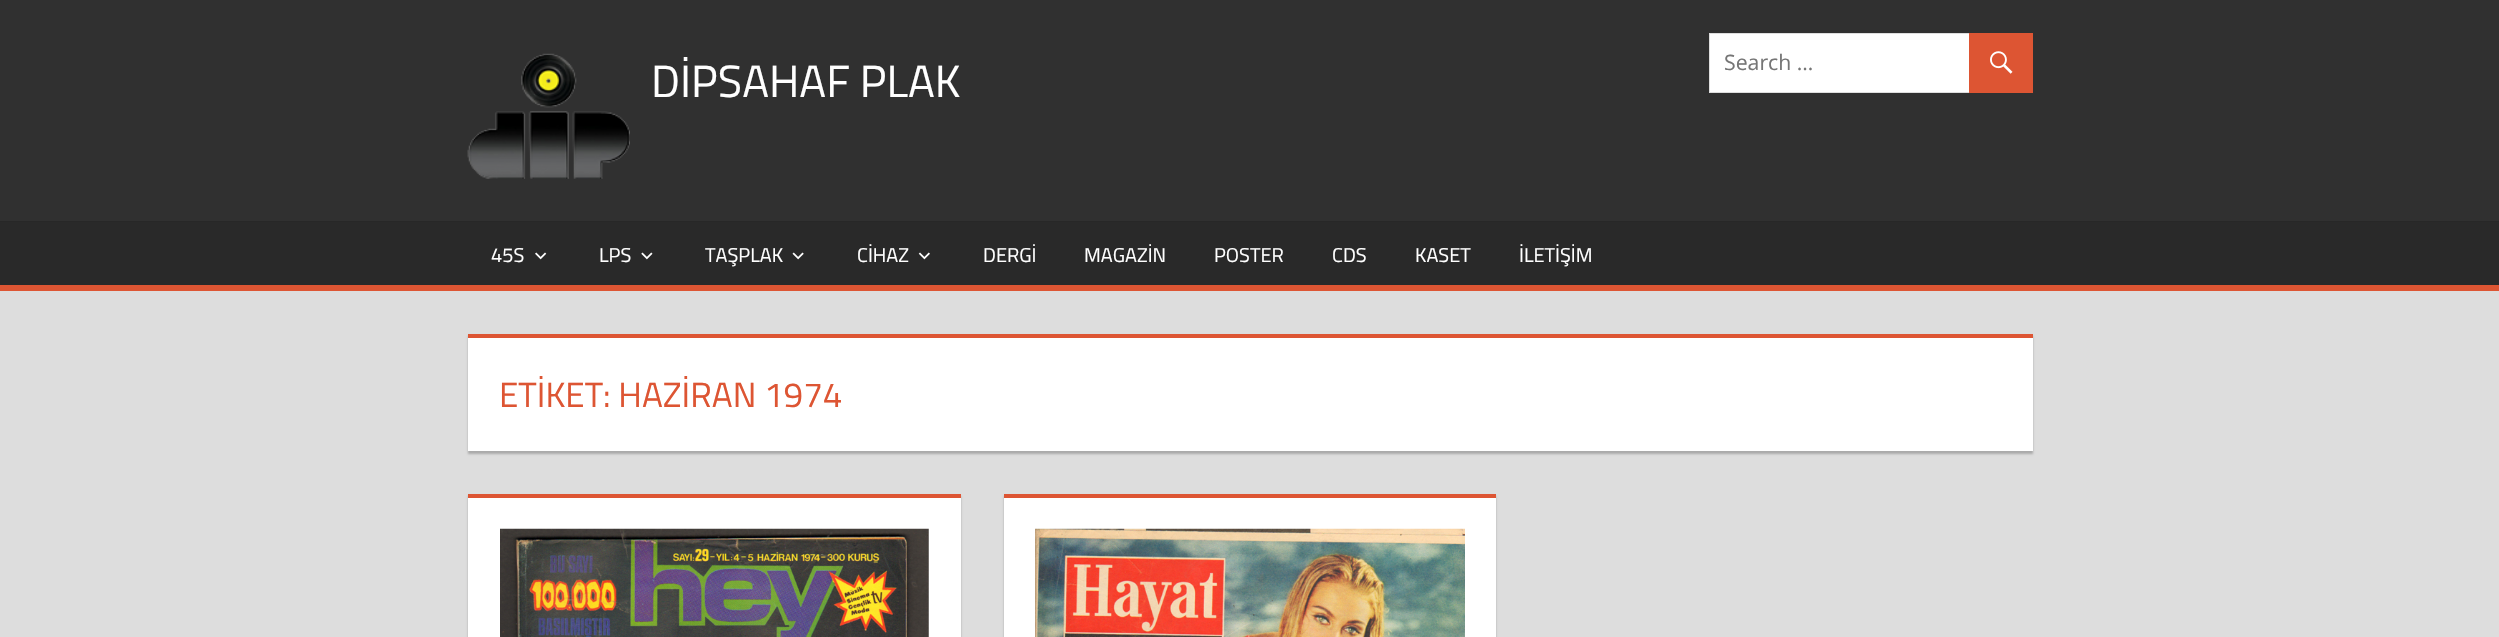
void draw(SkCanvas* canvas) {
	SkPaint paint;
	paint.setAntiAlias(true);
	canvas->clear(0xffdddddd);
	paint.setColor(0xff303030);
	canvas->drawRect(SkRect::MakeXYWH(0, 0, 2499, 221), paint);
	canvas->drawImageRect(SkImages::DeferredFromEncodedData(SkData::MakeFromFileName("img1.png")), SkRect::MakeXYWH(467, 53, 163, 126), SkSamplingOptions());
	SkFont f1(fontMgr->matchFamilyStyle("Titillium Web", SkFontStyle::Normal()), 45);
	f1.setSubpixel(true);
	paint.setColor(0xffffffff);
	canvas->drawString("DİPSAHAF PLAK", 651, 97, f1, paint);
	canvas->drawRect(SkRect::MakeXYWH(1710, 34, 259, 58), paint);
	paint.setStroke(true);
	paint.setStrokeWidth(1);
	paint.setColor(0xffdddddd);
	canvas->drawRect(SkRect::MakeXYWH(1709.5, 33.5, 323, 59), paint);
	SkFont f2(fontMgr->matchFamilyStyle("Open Sans", SkFontStyle::Normal()), 21.25);
	f2.setSubpixel(true);
	paint.setStroke(false);
	paint.setColor(0xff757575);
	canvas->drawString("Search …", 1724, 70, f2, paint);
	paint.setColor(0xffdd5533);
	canvas->drawRect(SkRect::MakeXYWH(1969, 33, 64, 60), paint);
	canvas->drawImageRect(SkImages::DeferredFromEncodedData(SkData::MakeFromFileName("img2.png")), SkRect::MakeXYWH(1990, 51, 23, 23), SkSamplingOptions());
	paint.setColor(0xff292929);
	canvas->drawRect(SkRect::MakeXYWH(0, 222, 2499, 63), paint);
	paint.setColor(0xff272727);
	canvas->drawRect(SkRect::MakeXYWH(0, 221, 2499, 1), paint);
	paint.setColor(0xffdd5533);
	canvas->drawRect(SkRect::MakeXYWH(0, 285, 2499, 6), paint);
	SkFont f3(fontMgr->matchFamilyStyle("Titillium Web", SkFontStyle::Normal()), 20);
	f3.setSubpixel(true);
	paint.setColor(0xffffffff);
	canvas->drawString("45S", 491, 262, f3, paint);
	canvas->drawImageRect(SkImages::DeferredFromEncodedData(SkData::MakeFromFileName("img3.png")), SkRect::MakeXYWH(535, 252, 12, 8), SkSamplingOptions());
	canvas->drawString("LPS", 599, 262, f3, paint);
	canvas->drawImageRect(SkImages::DeferredFromEncodedData(SkData::MakeFromFileName("img4.png")), SkRect::MakeXYWH(641, 252, 12, 8), SkSamplingOptions());
	canvas->drawString("TAŞPLAK", 705, 262, f3, paint);
	canvas->drawImageRect(SkImages::DeferredFromEncodedData(SkData::MakeFromFileName("img5.png")), SkRect::MakeXYWH(792, 252, 12, 8), SkSamplingOptions());
	canvas->drawString("CİHAZ", 857, 262, f3, paint);
	canvas->drawImageRect(SkImages::DeferredFromEncodedData(SkData::MakeFromFileName("img6.png")), SkRect::MakeXYWH(918, 252, 12, 8), SkSamplingOptions());
	canvas->drawString("DERGİ", 983, 262, f3, paint);
	canvas->drawString("MAGAZİN", 1084, 262, f3, paint);
	canvas->drawString("POSTER", 1214, 262, f3, paint);
	canvas->drawString("CDS", 1332, 262, f3, paint);
	canvas->drawString("KASET", 1415, 262, f3, paint);
	canvas->drawString("İLETİŞİM", 1519, 262, f3, paint);
	paint.setColor(0xffaaaaaa);
	paint.setMaskFilter(SkMaskFilter::MakeBlur(kNormal_SkBlurStyle, 1));
	canvas->drawRect(SkRect::MakeXYWH(468, 336, 1565, 118), paint);
	paint.setMaskFilter(nullptr);
	paint.setColor(0xffffffff);
	canvas->drawRect(SkRect::MakeXYWH(468, 338, 1565, 113), paint);
	paint.setColor(0xffdd5533);
	canvas->drawRect(SkRect::MakeXYWH(468, 334, 1565, 4), paint);
	SkFont f4(fontMgr->matchFamilyStyle("Titillium Web", SkFontStyle::Normal()), 35);
	f4.setSubpixel(true);
	canvas->drawString("ETİKET: HAZİRAN 1974", 499, 407, f4, paint);
	paint.setColor(0xffaaaaaa);
	paint.setMaskFilter(SkMaskFilter::MakeBlur(kNormal_SkBlurStyle, 1));
	canvas->drawRect(SkRect::MakeXYWH(468, 496, 493, 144), paint);
	paint.setMaskFilter(nullptr);
	paint.setColor(0xffffffff);
	canvas->drawRect(SkRect::MakeXYWH(468, 498, 493, 139), paint);
	paint.setColor(0xffdd5533);
	canvas->drawRect(SkRect::MakeXYWH(468, 494, 493, 4), paint);
	canvas->drawImageRect(SkImages::DeferredFromEncodedData(SkData::MakeFromFileName("img7.png")), SkRect::MakeXYWH(500, 528, 429, 109), SkSamplingOptions());
	paint.setColor(0xffaaaaaa);
	paint.setMaskFilter(SkMaskFilter::MakeBlur(kNormal_SkBlurStyle, 1));
	canvas->drawRect(SkRect::MakeXYWH(1004, 496, 492, 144), paint);
	paint.setMaskFilter(nullptr);
	paint.setColor(0xffffffff);
	canvas->drawRect(SkRect::MakeXYWH(1004, 498, 492, 139), paint);
	paint.setColor(0xffdd5533);
	canvas->drawRect(SkRect::MakeXYWH(1004, 494, 492, 4), paint);
	canvas->drawImageRect(SkImages::DeferredFromEncodedData(SkData::MakeFromFileName("img8.png")), SkRect::MakeXYWH(1035, 528, 430, 109), SkSamplingOptions());
}
